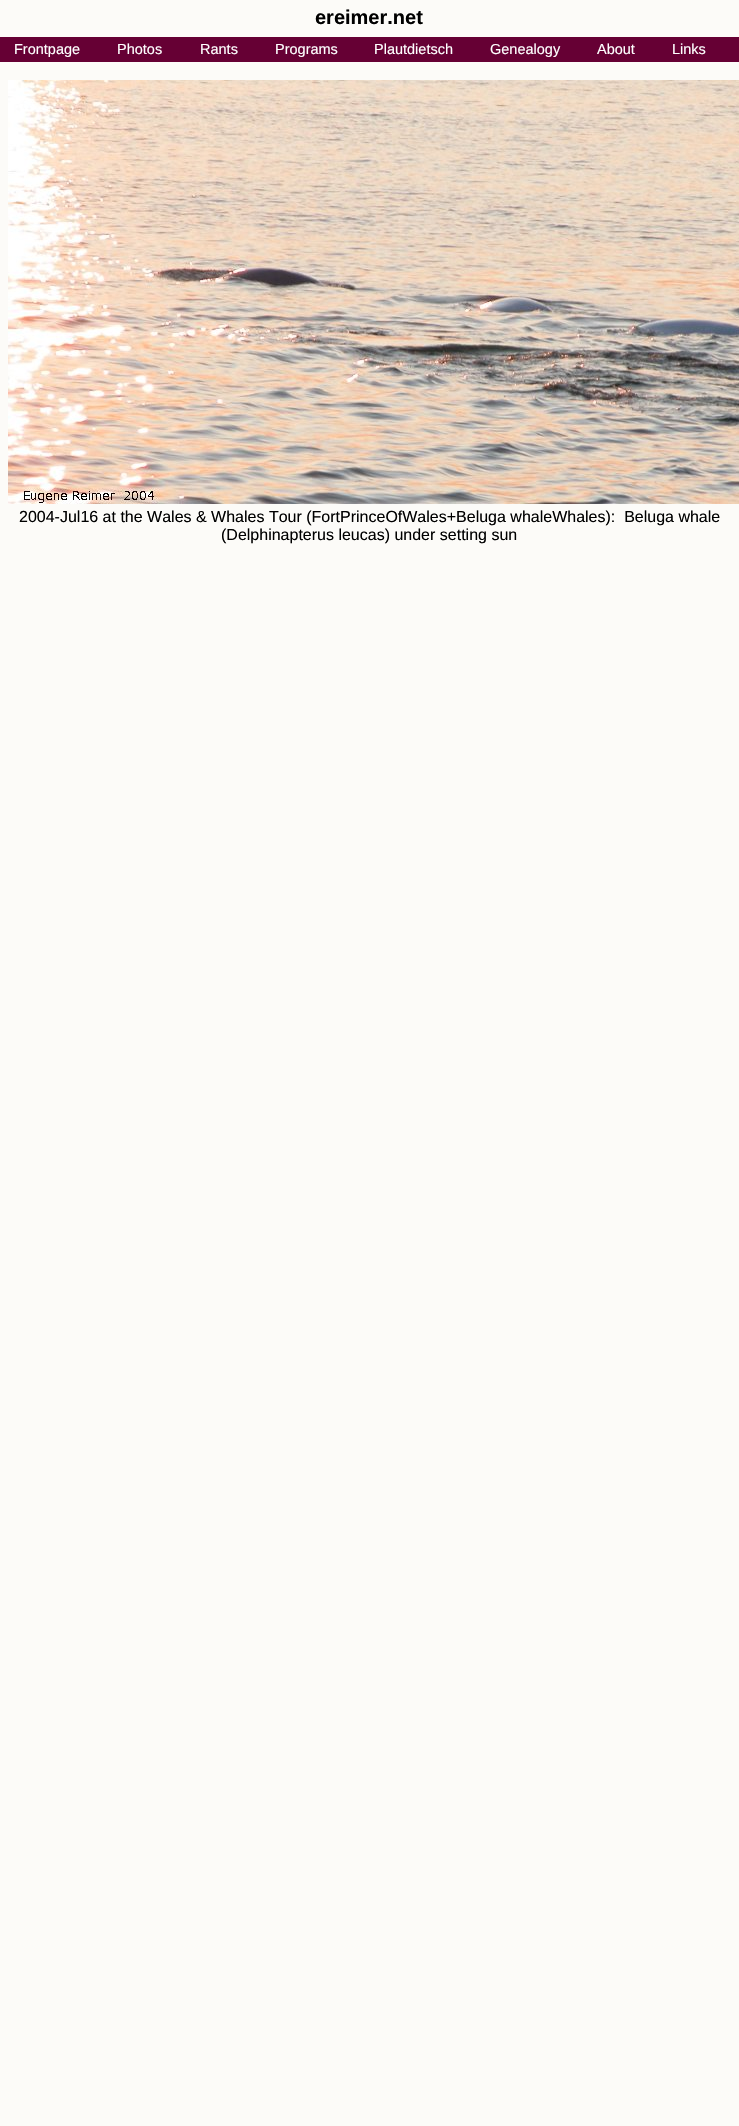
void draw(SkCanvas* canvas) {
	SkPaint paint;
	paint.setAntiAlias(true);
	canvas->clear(0xfffcfbf8);
	SkFont f1(fontMgr->matchFamilyStyle("Liberation Sans", SkFontStyle::Bold()), 20);
	f1.setSubpixel(true);
	paint.setColor(0xff000000);
	canvas->drawString("ereimer.net", 315, 24, f1, paint);
	paint.setColor(0xff660034);
	canvas->drawRect(SkRect::MakeXYWH(0, 37, 739, 25), paint);
	SkFont f2(fontMgr->matchFamilyStyle("Liberation Sans", SkFontStyle::Normal()), 14.5);
	f2.setSubpixel(true);
	paint.setColor(0xffffffff);
	canvas->drawString("Frontpage", 14, 54, f2, paint);
	canvas->drawString("Photos", 117, 54, f2, paint);
	canvas->drawString("Rants", 200, 54, f2, paint);
	canvas->drawString("Programs", 275, 54, f2, paint);
	canvas->drawString("Plautdietsch", 374, 54, f2, paint);
	canvas->drawString("Genealogy", 490, 54, f2, paint);
	canvas->drawString("About", 597, 54, f2, paint);
	canvas->drawString("Links", 672, 54, f2, paint);
	canvas->drawImageRect(SkImages::DeferredFromEncodedData(SkData::MakeFromFileName("img1.png")), SkRect::MakeXYWH(8, 80, 731, 424), SkSamplingOptions());
	SkFont f3(fontMgr->matchFamilyStyle("Liberation Sans", SkFontStyle::Normal()), 16);
	f3.setSubpixel(true);
	paint.setColor(0xff000000);
	canvas->drawString("2004-Jul16 at the Wales & Whales Tour (FortPrinceOfWales+Beluga whaleWhales):  Beluga whale", 19, 522, f3, paint);
	canvas->drawString("(Delphinapterus leucas) under setting sun", 221, 540, f3, paint);
}
